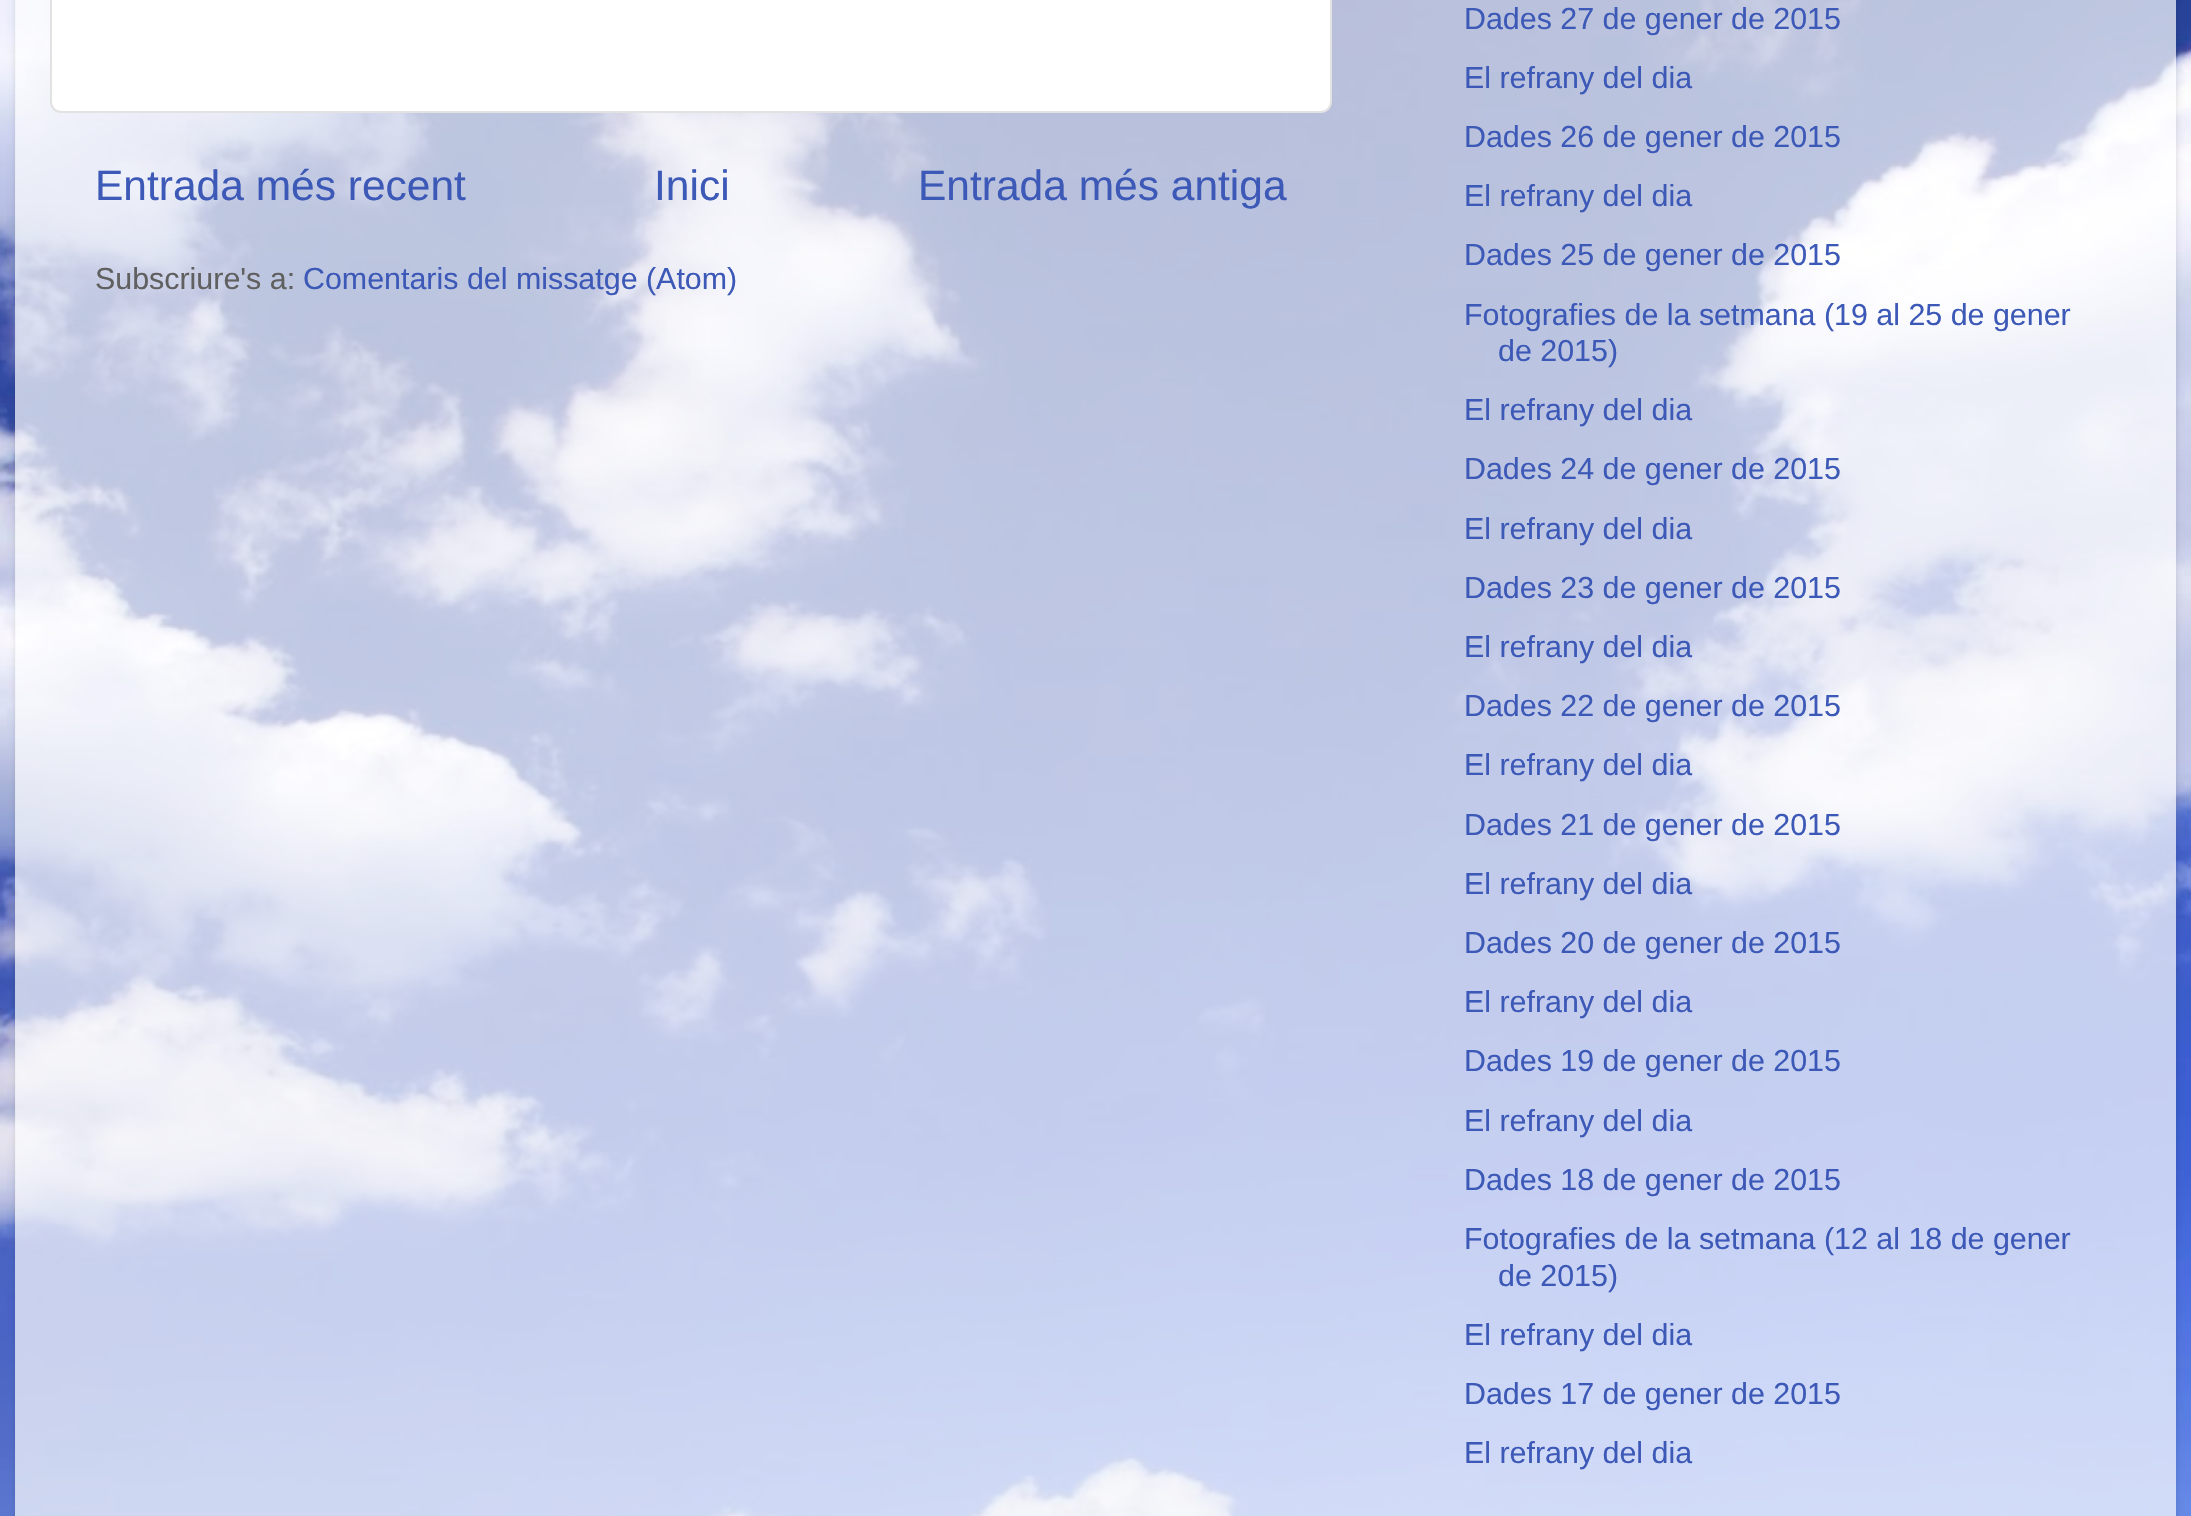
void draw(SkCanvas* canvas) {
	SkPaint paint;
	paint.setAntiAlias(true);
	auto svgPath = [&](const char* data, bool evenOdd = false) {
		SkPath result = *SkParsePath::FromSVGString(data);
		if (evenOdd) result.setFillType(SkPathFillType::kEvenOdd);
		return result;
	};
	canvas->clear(0xffffffff);
	canvas->drawImageRect(SkImages::DeferredFromEncodedData(SkData::MakeFromFileName("img1.png")), SkRect::MakeXYWH(0, 0, 2191, 1516), SkSamplingOptions());
	canvas->save();
	canvas->clipPath(svgPath("M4 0H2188V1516H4ZM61-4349H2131C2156-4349 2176-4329 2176-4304V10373H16V-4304C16-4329 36-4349 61-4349Z", true), true);
	paint.setColor(0x26000000);
	paint.setMaskFilter(SkMaskFilter::MakeBlur(kNormal_SkBlurStyle, 3.5));
	canvas->drawRoundRect(SkRect::MakeXYWH(16, -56, 2160, 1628), 45, 45, paint);
	paint.setMaskFilter(nullptr);
	canvas->restore();
	paint.setColor(0xb3ffffff);
	canvas->drawRect(SkRect::MakeXYWH(15, 0, 2161, 1516), paint);
	paint.setColor(0xffffffff);
	canvas->drawRoundRect(SkRect::MakeXYWH(51, -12, 1280, 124), 10, 10, paint);
	paint.setStroke(true);
	paint.setStrokeWidth(2);
	paint.setColor(0xffe2e2e2);
	canvas->drawRoundRect(SkRect::MakeXYWH(51, -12, 1280, 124), 10, 10, paint);
	SkFont f1(fontMgr->matchFamilyStyle("Liberation Sans", SkFontStyle::Normal()), 42.5);
	f1.setSubpixel(true);
	paint.setStroke(false);
	paint.setColor(0xff3d59b7);
	canvas->drawString("Entrada més recent", 95, 200, f1, paint);
	canvas->drawString("Inici", 654, 200, f1, paint);
	canvas->save();
	canvas->clipRect(SkRect::MakeXYWH(95, 158, 1192, 58));
	canvas->drawString("Entrada més antiga", 918, 200, f1, paint);
	canvas->restore();
	SkFont f2(fontMgr->matchFamilyStyle("Liberation Sans", SkFontStyle::Normal()), 30.4);
	f2.setSubpixel(true);
	paint.setColor(0xff606060);
	canvas->drawString("Subscriure's a:", 95, 289, f2, paint);
	paint.setColor(0xff3d59b7);
	canvas->drawString("Comentaris del missatge (Atom)", 303, 289, f2, paint);
	canvas->drawString("Dades 27 de gener de 2015", 1464, 29, f2, paint);
	canvas->drawString("El refrany del dia", 1464, 88, f2, paint);
	canvas->drawString("Dades 26 de gener de 2015", 1464, 147, f2, paint);
	canvas->drawString("El refrany del dia", 1464, 206, f2, paint);
	canvas->drawString("Dades 25 de gener de 2015", 1464, 265, f2, paint);
	canvas->drawString("Fotografies de la setmana (19 al 25 de gener", 1464, 325, f2, paint);
	canvas->drawString("de 2015)", 1498, 361, f2, paint);
	canvas->drawString("El refrany del dia", 1464, 420, f2, paint);
	canvas->drawString("Dades 24 de gener de 2015", 1464, 479, f2, paint);
	canvas->drawString("El refrany del dia", 1464, 539, f2, paint);
	canvas->drawString("Dades 23 de gener de 2015", 1464, 598, f2, paint);
	canvas->drawString("El refrany del dia", 1464, 657, f2, paint);
	canvas->drawString("Dades 22 de gener de 2015", 1464, 716, f2, paint);
	canvas->drawString("El refrany del dia", 1464, 775, f2, paint);
	canvas->drawString("Dades 21 de gener de 2015", 1464, 835, f2, paint);
	canvas->drawString("El refrany del dia", 1464, 894, f2, paint);
	canvas->drawString("Dades 20 de gener de 2015", 1464, 953, f2, paint);
	canvas->drawString("El refrany del dia", 1464, 1012, f2, paint);
	canvas->drawString("Dades 19 de gener de 2015", 1464, 1071, f2, paint);
	canvas->drawString("El refrany del dia", 1464, 1131, f2, paint);
	canvas->drawString("Dades 18 de gener de 2015", 1464, 1190, f2, paint);
	canvas->drawString("Fotografies de la setmana (12 al 18 de gener", 1464, 1249, f2, paint);
	canvas->drawString("de 2015)", 1498, 1286, f2, paint);
	canvas->drawString("El refrany del dia", 1464, 1345, f2, paint);
	canvas->drawString("Dades 17 de gener de 2015", 1464, 1404, f2, paint);
	canvas->drawString("El refrany del dia", 1464, 1463, f2, paint);
}
